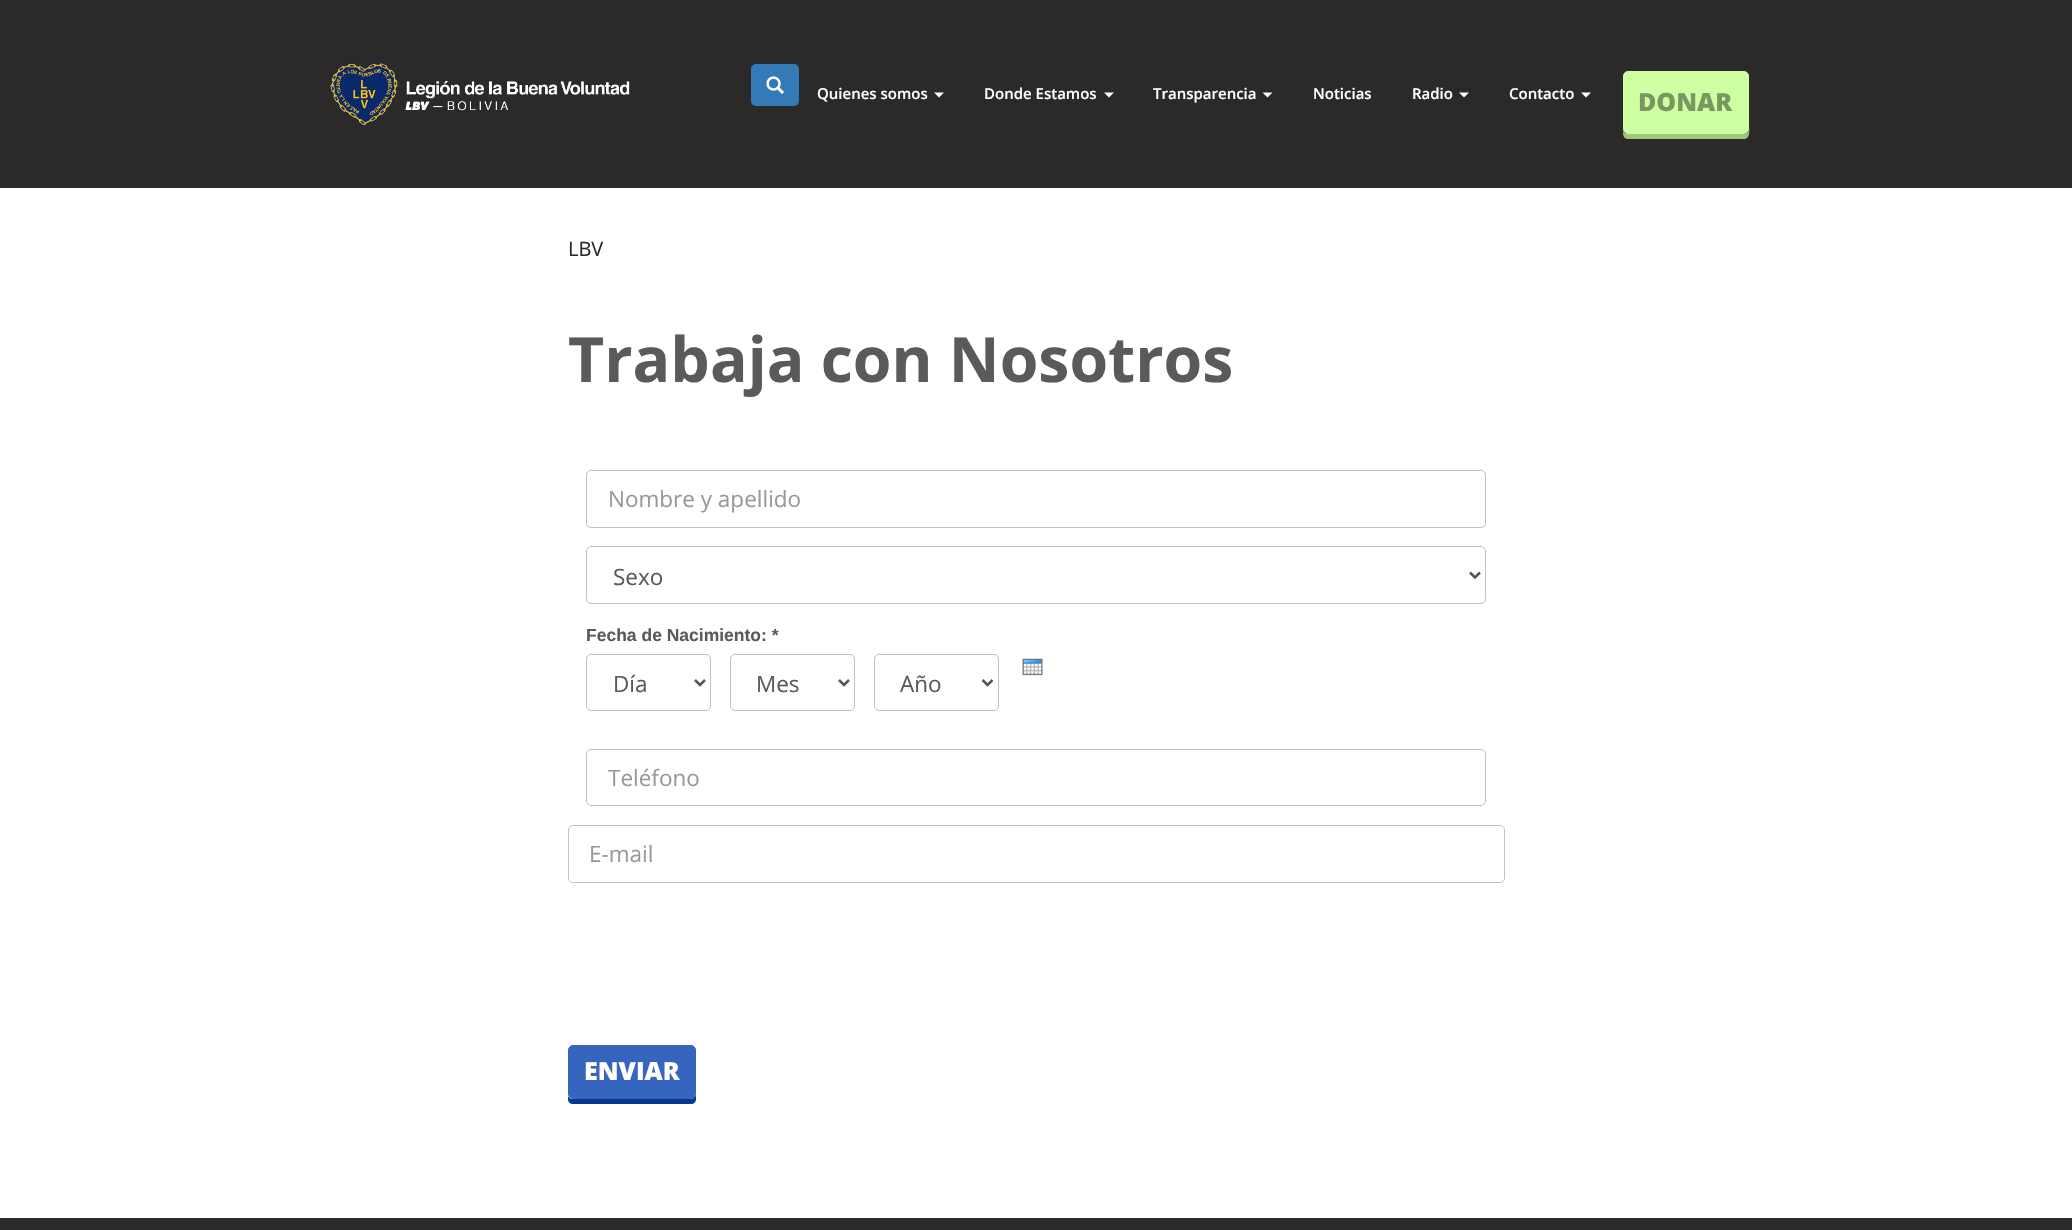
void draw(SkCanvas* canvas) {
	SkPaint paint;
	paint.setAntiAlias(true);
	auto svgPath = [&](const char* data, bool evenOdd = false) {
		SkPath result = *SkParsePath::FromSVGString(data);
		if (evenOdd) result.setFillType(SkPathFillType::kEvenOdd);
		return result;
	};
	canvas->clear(0xffffffff);
	paint.setColor(0xff2b2a28);
	canvas->drawRect(SkRect::MakeXYWH(0, 0, 2072, 188), paint);
	canvas->drawImageRect(SkImages::DeferredFromEncodedData(SkData::MakeFromFileName("img1.png")), SkRect::MakeXYWH(329, 62, 301, 65), SkSamplingOptions());
	paint.setColor(0xff337ab7);
	canvas->drawRoundRect(SkRect::MakeXYWH(751, 64, 48, 42), 5, 5, paint);
	canvas->drawImageRect(SkImages::DeferredFromEncodedData(SkData::MakeFromFileName("img2.png")), SkRect::MakeXYWH(766, 76, 18, 18), SkSamplingOptions());
	SkFont f1(fontMgr->matchFamilyStyle("Open Sans", SkFontStyle(600, SkFontStyle::kNormal_Width, SkFontStyle::kUpright_Slant)), 15);
	f1.setSubpixel(true);
	paint.setColor(0xffffffff);
	canvas->drawString("Quienes somos", 817, 99, f1, paint);
	canvas->drawPath(svgPath("M934 92.5H944L939 97.5Z"), paint);
	canvas->drawString("Donde Estamos", 984, 99, f1, paint);
	canvas->drawPath(svgPath("M1104 92.5H1114L1109 97.5Z"), paint);
	canvas->drawString("Transparencia", 1153, 99, f1, paint);
	canvas->drawPath(svgPath("M1262.5 92.5H1272.5L1267.5 97.5Z"), paint);
	canvas->drawString("Noticias", 1313, 99, f1, paint);
	canvas->drawString("Radio", 1412, 99, f1, paint);
	canvas->drawPath(svgPath("M1459 92.5H1469L1464 97.5Z"), paint);
	canvas->drawString("Contacto", 1509, 99, f1, paint);
	canvas->drawPath(svgPath("M1581 92.5H1591L1586 97.5Z"), paint);
	paint.setColor(0xff9dc879);
	canvas->drawPath(svgPath("M1623 131C1623 134 1623 139 1628 139H1744C1751 139 1749 129 1749 125V79V129C1749 132 1747 134 1744 134H1628C1626 134 1624 133 1623 131Z"), paint);
	paint.setColor(0xffceffa3);
	canvas->drawRoundRect(SkRect::MakeXYWH(1623.5, 71.5, 125, 62), 4.5, 4.5, paint);
	paint.setStroke(true);
	paint.setStrokeWidth(1);
	canvas->drawRoundRect(SkRect::MakeXYWH(1623.5, 71.5, 125, 62), 4.5, 4.5, paint);
	SkFont f2(fontMgr->matchFamilyStyle("Open Sans", SkFontStyle(800, SkFontStyle::kNormal_Width, SkFontStyle::kUpright_Slant)), 25);
	f2.setSubpixel(true);
	paint.setStroke(false);
	paint.setColor(0xff79975f);
	canvas->drawString("DONAR", 1638, 111, f2, paint);
	SkFont f3(fontMgr->matchFamilyStyle("Open Sans", SkFontStyle::Normal()), 20);
	f3.setSubpixel(true);
	paint.setColor(0xff2b2a28);
	canvas->drawString("LBV", 568, 256, f3, paint);
	SkFont f4(fontMgr->matchFamilyStyle("Open Sans", SkFontStyle::Bold()), 62.5);
	f4.setSubpixel(true);
	paint.setColor(0xff5a5a5a);
	canvas->drawString("Trabaja con Nosotros", 568, 382, f4, paint);
	paint.setStroke(true);
	paint.setColor(0xffc1c1c1);
	canvas->drawRoundRect(SkRect::MakeXYWH(586.5, 470.5, 899, 57), 4.5, 4.5, paint);
	SkFont f5(fontMgr->matchFamilyStyle("Open Sans", SkFontStyle::Normal()), 22.5);
	f5.setSubpixel(true);
	paint.setStroke(false);
	paint.setColor(0xff999999);
	canvas->drawString("Nombre y apellido", 608, 507, f5, paint);
	paint.setStroke(true);
	paint.setColor(0xffc1c1c1);
	canvas->drawRoundRect(SkRect::MakeXYWH(586.5, 546.5, 899, 57), 4.5, 4.5, paint);
	paint.setStrokeWidth(2.5);
	paint.setColor(0xff555555);
	canvas->drawPath(svgPath("M1470 572.5L1475 577.5L1480 572.5"), paint);
	paint.setStroke(false);
	paint.setColor(0xff5a5a5a);
	canvas->drawString("Sexo", 613, 585, f5, paint);
	SkFont f6(fontMgr->matchFamilyStyle("Liberation Sans", SkFontStyle::Bold()), 17.5);
	f6.setSubpixel(true);
	canvas->drawString("Fecha de Nacimiento: *", 586, 641, f6, paint);
	canvas->drawImageRect(SkImages::DeferredFromEncodedData(SkData::MakeFromFileName("img3.png")), SkRect::MakeXYWH(1022, 658, 21, 18), SkSamplingOptions());
	paint.setStroke(true);
	paint.setStrokeWidth(1);
	paint.setColor(0xffc1c1c1);
	canvas->drawRoundRect(SkRect::MakeXYWH(586.5, 654.5, 124, 56), 4.5, 4.5, paint);
	paint.setStrokeWidth(2.5);
	paint.setColor(0xff555555);
	canvas->drawPath(svgPath("M695 680L700 685L705 680"), paint);
	paint.setStroke(false);
	paint.setColor(0xff5a5a5a);
	canvas->drawString("Día", 613, 692, f5, paint);
	paint.setStroke(true);
	paint.setStrokeWidth(1);
	paint.setColor(0xffc1c1c1);
	canvas->drawRoundRect(SkRect::MakeXYWH(730.5, 654.5, 124, 56), 4.5, 4.5, paint);
	paint.setStrokeWidth(2.5);
	paint.setColor(0xff555555);
	canvas->drawPath(svgPath("M839 680L844 685L849 680"), paint);
	paint.setStroke(false);
	paint.setColor(0xff5a5a5a);
	canvas->drawString("Mes", 756, 692, f5, paint);
	paint.setStroke(true);
	paint.setStrokeWidth(1);
	paint.setColor(0xffc1c1c1);
	canvas->drawRoundRect(SkRect::MakeXYWH(874.5, 654.5, 124, 56), 4.5, 4.5, paint);
	paint.setStrokeWidth(2.5);
	paint.setColor(0xff555555);
	canvas->drawPath(svgPath("M982.5 680L987.5 685L992.5 680"), paint);
	paint.setStroke(false);
	paint.setColor(0xff5a5a5a);
	canvas->drawString("Año", 900, 692, f5, paint);
	paint.setStroke(true);
	paint.setStrokeWidth(1);
	paint.setColor(0xffc1c1c1);
	canvas->drawRoundRect(SkRect::MakeXYWH(586.5, 749.5, 899, 56), 4.5, 4.5, paint);
	paint.setStroke(false);
	paint.setColor(0xff999999);
	canvas->drawString("Teléfono", 608, 786, f5, paint);
	paint.setStroke(true);
	paint.setColor(0xffc1c1c1);
	canvas->drawRoundRect(SkRect::MakeXYWH(568.5, 825.5, 936, 57), 4.5, 4.5, paint);
	paint.setStroke(false);
	paint.setColor(0xff999999);
	canvas->drawString("E-mail", 589, 862, f5, paint);
	paint.setColor(0xff08378e);
	canvas->drawPath(svgPath("M568 1096V1099C568 1102 570 1104 573 1104H691C694 1104 696 1102 696 1099V1095C695 1097 693 1099 691 1099H572C571 1099 569 1098 568 1096Z"), paint);
	paint.setColor(0xff3665bf);
	canvas->drawRoundRect(SkRect::MakeXYWH(568.5, 1045.5, 127, 53), 4.5, 4.5, paint);
	paint.setStroke(true);
	canvas->drawRoundRect(SkRect::MakeXYWH(568.5, 1045.5, 127, 53), 4.5, 4.5, paint);
	paint.setStroke(false);
	paint.setColor(0xffffffff);
	canvas->drawString("ENVIAR", 584, 1080, f2, paint);
	paint.setColor(0xff2b2a28);
	canvas->drawRect(SkRect::MakeXYWH(0, 1218, 2072, 12), paint);
}
